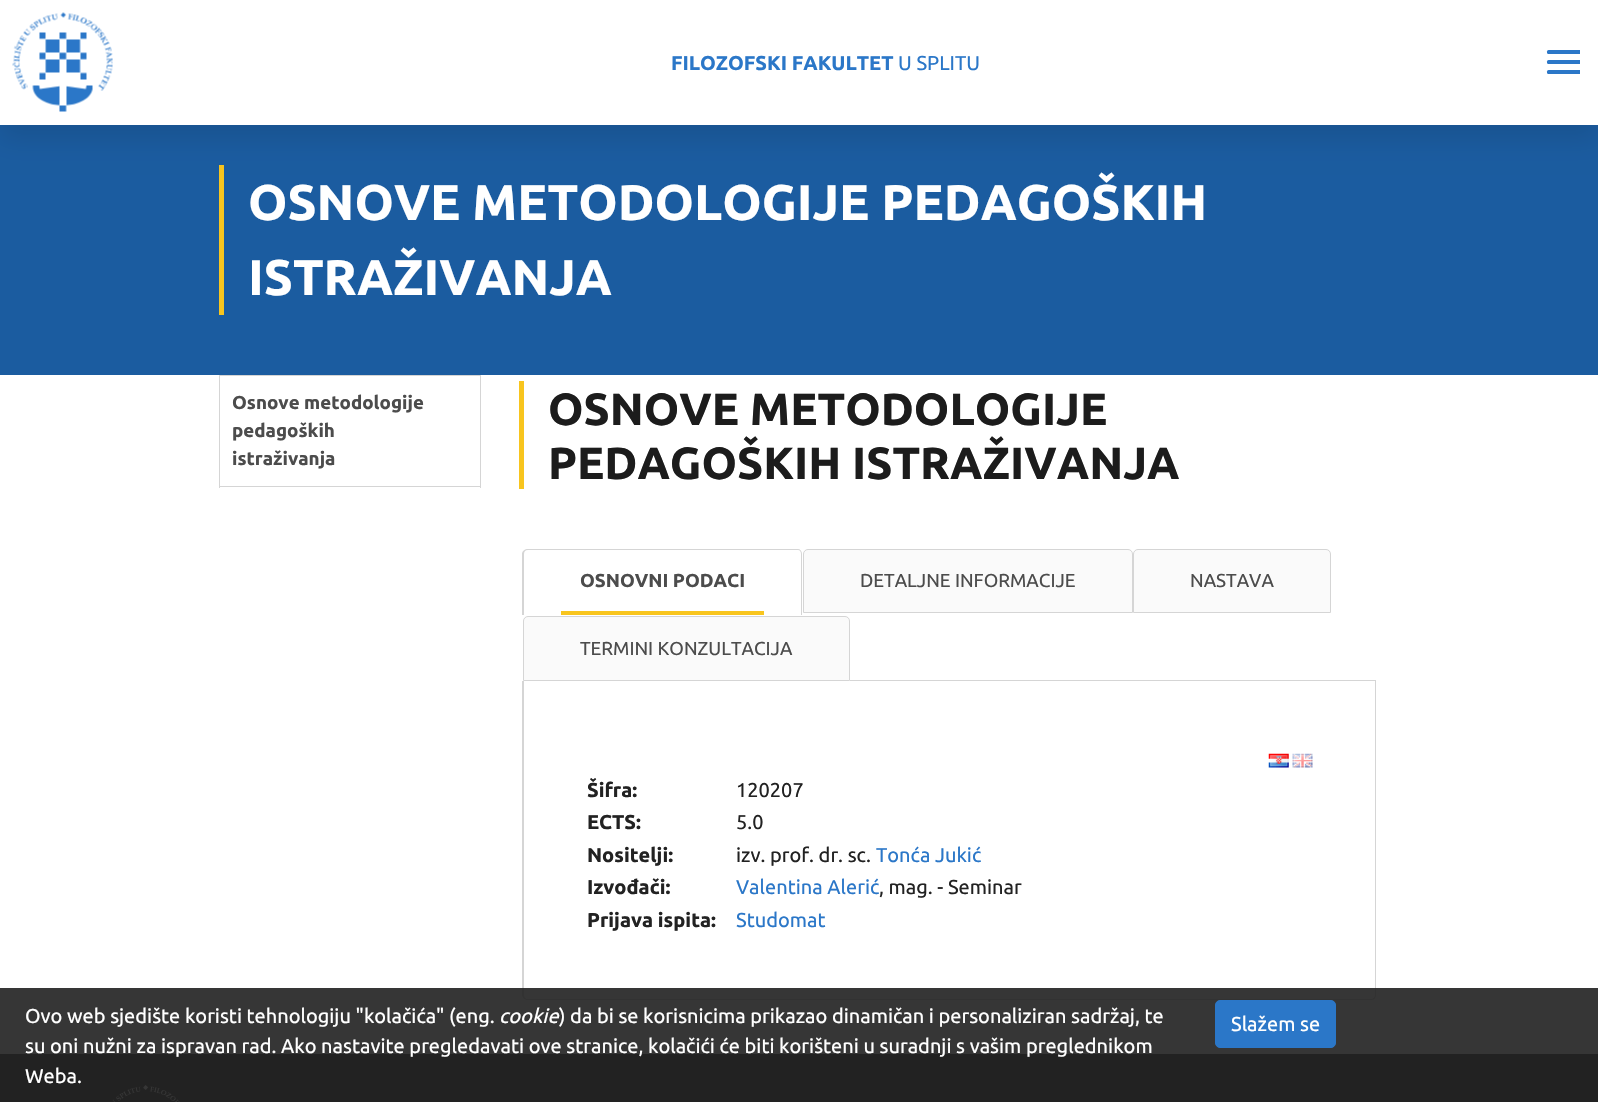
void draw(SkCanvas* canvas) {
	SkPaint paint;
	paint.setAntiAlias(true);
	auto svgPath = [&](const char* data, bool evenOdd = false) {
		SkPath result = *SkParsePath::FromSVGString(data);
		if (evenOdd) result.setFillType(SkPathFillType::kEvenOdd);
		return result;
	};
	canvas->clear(0xffffffff);
	paint.setColor(0xff1b5ca0);
	canvas->drawRect(SkRect::MakeXYWH(0, 125, 1598, 250), paint);
	paint.setColor(0xfff8c51e);
	canvas->drawRect(SkRect::MakeXYWH(219, 165, 5, 150), paint);
	paint.setColor(0x1a000000);
	paint.setMaskFilter(SkMaskFilter::MakeBlur(kNormal_SkBlurStyle, 12.5));
	canvas->drawRect(SkRect::MakeXYWH(0, 13, 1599, 125), paint);
	paint.setMaskFilter(nullptr);
	paint.setColor(0xffffffff);
	canvas->drawRect(SkRect::MakeXYWH(0, 0, 1598, 125), paint);
	canvas->drawImageRect(SkImages::DeferredFromEncodedData(SkData::MakeFromFileName("img1.png")), SkRect::MakeXYWH(12, 12, 101, 100), SkSamplingOptions());
	SkFont f1(fontMgr->matchFamilyStyle("Ubuntu", SkFontStyle::Bold()), 20);
	f1.setSubpixel(true);
	paint.setColor(0xff2b77c8);
	canvas->drawString("FILOZOFSKI FAKULTET", 671, 70, f1, paint);
	SkFont f2(fontMgr->matchFamilyStyle("Ubuntu", SkFontStyle::Normal()), 20);
	f2.setSubpixel(true);
	canvas->drawString("U SPLITU", 898, 70, f2, paint);
	canvas->save();
	canvas->clipRect(SkRect::MakeXYWH(1546, 50, 34, 25));
	canvas->drawRoundRect(SkRect::MakeXYWH(1547, 50, 34, 4), 1.5, 1.5, paint);
	canvas->drawRoundRect(SkRect::MakeXYWH(1547, 60, 34, 4), 1.5, 1.5, paint);
	canvas->drawRoundRect(SkRect::MakeXYWH(1547, 70, 34, 4), 1.5, 1.5, paint);
	canvas->restore();
	SkFont f3(fontMgr->matchFamilyStyle("Ubuntu", SkFontStyle::Bold()), 50);
	f3.setSubpixel(true);
	paint.setColor(0xffffffff);
	canvas->drawString("OSNOVE METODOLOGIJE PEDAGOŠKIH", 248, 220, f3, paint);
	canvas->drawString("ISTRAŽIVANJA", 248, 295, f3, paint);
	paint.setColor(0xffd5d5d5);
	canvas->drawRect(SkRect::MakeXYWH(480, 375, 1, 113), paint);
	canvas->drawRect(SkRect::MakeXYWH(219, 486, 262, 1), paint);
	canvas->drawRect(SkRect::MakeXYWH(219, 375, 1, 113), paint);
	canvas->drawRect(SkRect::MakeXYWH(220, 375, 260, 1), paint);
	SkFont f4(fontMgr->matchFamilyStyle("Ubuntu", SkFontStyle::Bold()), 18.75);
	f4.setSubpixel(true);
	paint.setColor(0xff4c4c4c);
	canvas->drawString("Osnove metodologije", 232, 409, f4, paint);
	canvas->drawString("pedagoških", 232, 437, f4, paint);
	canvas->drawString("istraživanja", 232, 465, f4, paint);
	paint.setColor(0xfff8c51e);
	canvas->drawRect(SkRect::MakeXYWH(519, 381, 5, 108), paint);
	SkFont f5(fontMgr->matchFamilyStyle("Ubuntu", SkFontStyle::Bold()), 45);
	f5.setSubpixel(true);
	paint.setColor(0xff1c1c1c);
	canvas->drawString("OSNOVE METODOLOGIJE", 548, 425, f5, paint);
	canvas->drawString("PEDAGOŠKIH ISTRAŽIVANJA", 548, 479, f5, paint);
	paint.setColor(0xffd5d5d5);
	canvas->drawRect(SkRect::MakeXYWH(850, 680, 526, 1), paint);
	canvas->drawPath(svgPath("M528 549H798C800 549 802 551 802 554V615H522V554C522 551 525 549 528 549ZM528 550H798C800 550 801 552 801 554V615H524V554C524 552 525 550 528 550Z", true), paint);
	paint.setColor(0xfff8c51e);
	canvas->drawRect(SkRect::MakeXYWH(561, 611, 203, 4), paint);
	paint.setColor(0xff4c4c4c);
	canvas->drawString("OSNOVNI PODACI", 580, 587, f4, paint);
	paint.setColor(0xfffafafa);
	canvas->drawPath(svgPath("M808 549.5H1128C1130.5 549.5 1132.5 551.5 1132.5 554V612.5H803.5V554C803.5 551.5 805.5 549.5 808 549.5Z"), paint);
	paint.setStroke(true);
	paint.setStrokeWidth(1);
	paint.setColor(0xffd5d5d5);
	canvas->drawPath(svgPath("M808 549.5H1128C1130.5 549.5 1132.5 551.5 1132.5 554V612.5H803.5V554C803.5 551.5 805.5 549.5 808 549.5Z"), paint);
	SkFont f6(fontMgr->matchFamilyStyle("Ubuntu", SkFontStyle::Normal()), 18.75);
	f6.setSubpixel(true);
	paint.setStroke(false);
	paint.setColor(0xff4c4c4c);
	canvas->drawString("DETALJNE INFORMACIJE", 860, 587, f6, paint);
	paint.setColor(0xfffafafa);
	canvas->drawPath(svgPath("M1138 549.5H1326C1328.5 549.5 1330.5 551.5 1330.5 554V612.5H1133.5V554C1133.5 551.5 1135.5 549.5 1138 549.5Z"), paint);
	paint.setStroke(true);
	paint.setColor(0xffd5d5d5);
	canvas->drawPath(svgPath("M1138 549.5H1326C1328.5 549.5 1330.5 551.5 1330.5 554V612.5H1133.5V554C1133.5 551.5 1135.5 549.5 1138 549.5Z"), paint);
	paint.setStroke(false);
	paint.setColor(0xff4c4c4c);
	canvas->drawString("NASTAVA", 1190, 587, f6, paint);
	paint.setColor(0xfffafafa);
	canvas->drawPath(svgPath("M528 616.5H845C847.5 616.5 849.5 618.5 849.5 621V680.5H523.5V621C523.5 618.5 525.5 616.5 528 616.5Z"), paint);
	paint.setStroke(true);
	paint.setColor(0xffd5d5d5);
	canvas->drawPath(svgPath("M528 616.5H845C847.5 616.5 849.5 618.5 849.5 621V680.5H523.5V621C523.5 618.5 525.5 616.5 528 616.5Z"), paint);
	paint.setStroke(false);
	paint.setColor(0xff4c4c4c);
	canvas->drawString("TERMINI KONZULTACIJA", 580, 655, f6, paint);
	paint.setColor(0xffd5d5d5);
	canvas->drawPath(svgPath("M522 681H1376V995C1376 998 1374 1000 1371 1000H528C525 1000 522 998 522 995ZM524 681H1375V995C1375 997 1373 999 1371 999H528C525 999 524 997 524 995Z", true), paint);
	canvas->drawImageRect(SkImages::DeferredFromEncodedData(SkData::MakeFromFileName("img2.png")), SkRect::MakeXYWH(1268, 753, 21, 15), SkSamplingOptions());
	canvas->drawImageRect(SkImages::DeferredFromEncodedData(SkData::MakeFromFileName("img3.png")), SkRect::MakeXYWH(1292, 753, 21, 15), SkSamplingOptions());
	paint.setColor(0xff222222);
	canvas->drawString("Šifra:", 587, 797, f1, paint);
	canvas->drawString("120207", 736, 797, f2, paint);
	canvas->drawString("ECTS:", 587, 829, f1, paint);
	canvas->drawString("5.0", 736, 829, f2, paint);
	canvas->drawString("Nositelji:", 587, 862, f1, paint);
	canvas->drawString("izv. prof. dr. sc.", 736, 862, f2, paint);
	paint.setColor(0xff2b77c8);
	canvas->drawString("Tonća Jukić", 876, 862, f2, paint);
	paint.setColor(0xff222222);
	canvas->drawString("Izvođači:", 587, 894, f1, paint);
	paint.setColor(0xff2b77c8);
	canvas->drawString("Valentina Alerić", 736, 894, f2, paint);
	paint.setColor(0xff222222);
	canvas->drawString(", mag. - Seminar", 879, 894, f2, paint);
	canvas->drawString("Prijava ispita:", 587, 927, f1, paint);
	paint.setColor(0xff2b77c8);
	canvas->drawString("Studomat", 736, 927, f2, paint);
	paint.setColor(0xff333333);
	canvas->drawRect(SkRect::MakeXYWH(0, 1054, 1598, 48), paint);
	canvas->drawImageRect(SkImages::DeferredFromEncodedData(SkData::MakeFromFileName("img4.png")), SkRect::MakeXYWH(112, 1085, 68, 17), SkSamplingOptions());
	paint.setColor(0xe6202020);
	canvas->drawRect(SkRect::MakeXYWH(0, 988, 1598, 114), paint);
	paint.setColor(0xffffffff);
	canvas->drawString("Ovo web sjedište koristi tehnologiju \"kolačića\" (eng.", 25, 1023, f2, paint);
	SkFont f7(fontMgr->matchFamilyStyle("Ubuntu", SkFontStyle::Italic()), 20);
	f7.setSubpixel(true);
	canvas->drawString("cookie", 499, 1023, f7, paint);
	canvas->drawString(") da bi se korisnicima prikazao dinamičan i personaliziran sadržaj, te", 559, 1023, f2, paint);
	canvas->drawString("su oni nužni za ispravan rad. Ako nastavite pregledavati ove stranice, kolačići će biti korišteni u suradnji s vašim preglednikom", 25, 1053, f2, paint);
	canvas->drawString("Weba.", 25, 1083, f2, paint);
	paint.setColor(0xff2b77c8);
	canvas->drawRoundRect(SkRect::MakeXYWH(1215.5, 1000.5, 120, 47), 4.5, 4.5, paint);
	paint.setStroke(true);
	canvas->drawRoundRect(SkRect::MakeXYWH(1215.5, 1000.5, 120, 47), 4.5, 4.5, paint);
	paint.setStroke(false);
	paint.setColor(0xffffffff);
	canvas->drawString("Slažem se", 1231, 1031, f2, paint);
}
